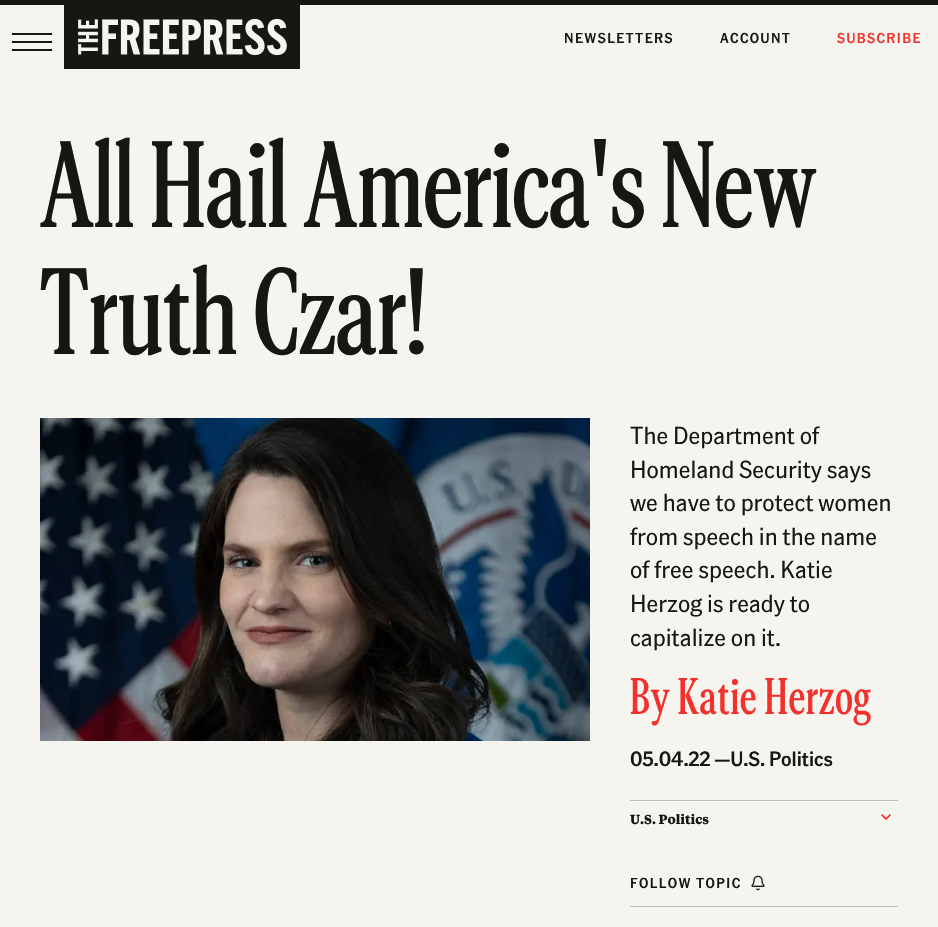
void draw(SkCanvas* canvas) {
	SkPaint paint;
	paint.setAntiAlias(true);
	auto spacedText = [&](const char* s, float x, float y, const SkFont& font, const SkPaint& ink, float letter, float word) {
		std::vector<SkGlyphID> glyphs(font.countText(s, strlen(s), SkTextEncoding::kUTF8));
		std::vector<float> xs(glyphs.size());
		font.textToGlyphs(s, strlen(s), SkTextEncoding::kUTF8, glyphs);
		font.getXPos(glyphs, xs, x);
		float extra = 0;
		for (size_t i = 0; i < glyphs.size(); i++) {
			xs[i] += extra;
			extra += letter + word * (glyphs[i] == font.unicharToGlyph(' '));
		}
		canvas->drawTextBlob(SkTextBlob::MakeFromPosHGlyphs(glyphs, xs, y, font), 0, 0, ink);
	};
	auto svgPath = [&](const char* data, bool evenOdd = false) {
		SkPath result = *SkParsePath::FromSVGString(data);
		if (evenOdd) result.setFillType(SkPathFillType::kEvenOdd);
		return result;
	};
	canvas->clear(0xfff6f4ef);
	paint.setColor(0xff161613);
	canvas->drawRect(SkRect::MakeXYWH(0, 0, 938, 5), paint);
	canvas->drawRect(SkRect::MakeXYWH(12, 33, 40, 2), paint);
	canvas->drawRect(SkRect::MakeXYWH(12, 41, 40, 2), paint);
	canvas->drawRect(SkRect::MakeXYWH(12, 49, 40, 2), paint);
	canvas->drawImageRect(SkImages::DeferredFromEncodedData(SkData::MakeFromFileName("img1.png")), SkRect::MakeXYWH(64, 5, 236, 64), SkSamplingOptions());
	SkFont f1(fontMgr->matchFamilyStyle("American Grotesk", SkFontStyle(500, SkFontStyle::kNormal_Width, SkFontStyle::kUpright_Slant)), 14);
	f1.setSubpixel(true);
	spacedText("NEWSLETTERS", 564, 43, f1, paint, 1.4, 0);
	spacedText("ACCOUNT", 720, 43, f1, paint, 1.4, 0);
	paint.setColor(0xfff2312c);
	spacedText("SUBSCRIBE", 837, 43, f1, paint, 1.4, 0);
	SkFont f2(fontMgr->matchFamilyStyle("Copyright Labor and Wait", SkFontStyle::Normal()), 110);
	f2.setSubpixel(true);
	paint.setColor(0xff161613);
	canvas->drawString("All Hail America's New", 40, 227, f2, paint);
	canvas->drawString("Truth Czar!", 40, 354, f2, paint);
	canvas->drawImageRect(SkImages::DeferredFromEncodedData(SkData::MakeFromFileName("img2.png")), SkRect::MakeXYWH(40, 418, 550, 323), SkSamplingOptions());
	SkFont f3(fontMgr->matchFamilyStyle("American Grotesk", SkFontStyle::Normal()), 24);
	f3.setSubpixel(true);
	canvas->drawString("The Department of", 630, 444, f3, paint);
	canvas->drawString("Homeland Security says", 630, 478, f3, paint);
	canvas->drawString("we have to protect women", 630, 511, f3, paint);
	canvas->drawString("from speech in the name", 630, 545, f3, paint);
	canvas->drawString("of free speech. Katie", 630, 578, f3, paint);
	canvas->drawString("Herzog is ready to", 630, 612, f3, paint);
	canvas->drawString("capitalize on it.", 630, 646, f3, paint);
	SkFont f4(fontMgr->matchFamilyStyle("Copyright Labor and Wait", SkFontStyle::Normal()), 46);
	f4.setSubpixel(true);
	paint.setColor(0xfff2312c);
	spacedText("By Katie Herzog", 630, 714, f4, paint, 0.9, 0);
	SkFont f5(fontMgr->matchFamilyStyle("American Grotesk", SkFontStyle(500, SkFontStyle::kNormal_Width, SkFontStyle::kUpright_Slant)), 20);
	f5.setSubpixel(true);
	paint.setColor(0xff161613);
	canvas->drawString("05.04.22 —U.S. Politics", 630, 766, f5, paint);
	paint.setColor(0xffbebdb8);
	canvas->drawRect(SkRect::MakeXYWH(630, 800, 268, 1), paint);
	canvas->drawRect(SkRect::MakeXYWH(630, 906, 268, 1), paint);
	SkFont f6(fontMgr->matchFamilyStyle("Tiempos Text", SkFontStyle::Bold()), 13);
	f6.setSubpixel(true);
	paint.setColor(0xff161613);
	canvas->drawString("U.S. Politics", 630, 824, f6, paint);
	paint.setStroke(true);
	paint.setStrokeWidth(1.3);
	paint.setStrokeCap(SkPaint::kRound_Cap);
	paint.setStrokeJoin(SkPaint::kRound_Join);
	paint.setColor(0xffff0000);
	canvas->drawPath(svgPath("M882 815L886 819L890 815"), paint);
	paint.setStroke(false);
	paint.setColor(0xff161613);
	spacedText("FOLLOW TOPIC", 630, 888, f1, paint, 1.4, 0);
	canvas->drawImageRect(SkImages::DeferredFromEncodedData(SkData::MakeFromFileName("img3.png")), SkRect::MakeXYWH(751, 875, 14, 16), SkSamplingOptions());
}
